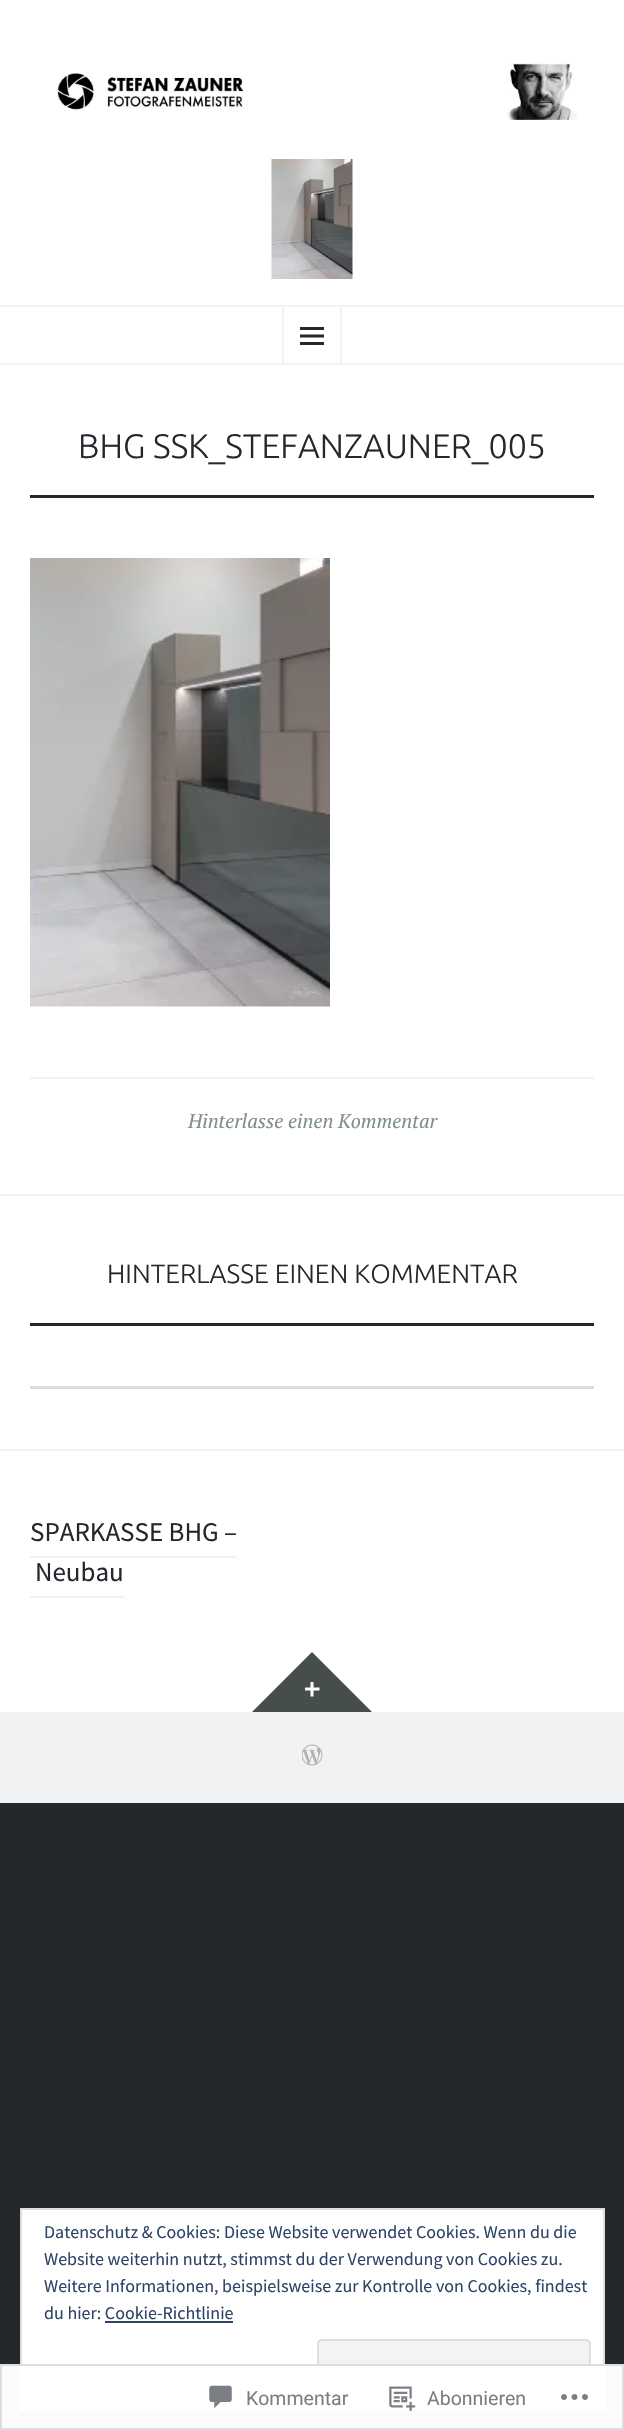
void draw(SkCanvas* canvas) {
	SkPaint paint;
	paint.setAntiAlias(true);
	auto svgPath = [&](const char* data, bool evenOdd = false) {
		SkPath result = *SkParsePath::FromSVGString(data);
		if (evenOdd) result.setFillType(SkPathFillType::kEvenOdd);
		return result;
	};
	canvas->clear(0xff24282d);
	paint.setColor(0xffffffff);
	canvas->drawRect(SkRect::MakeXYWH(0, 0, 624, 1712), paint);
	canvas->drawImageRect(SkImages::DeferredFromEncodedData(SkData::MakeFromFileName("img1.png")), SkRect::MakeXYWH(57, 63, 521, 57), SkSamplingOptions());
	canvas->drawImageRect(SkImages::DeferredFromEncodedData(SkData::MakeFromFileName("img2.png")), SkRect::MakeXYWH(271, 159, 82, 120), SkSamplingOptions());
	paint.setColor(0xfff1f2f3);
	canvas->drawRect(SkRect::MakeXYWH(0, 305, 624, 2), paint);
	canvas->drawRect(SkRect::MakeXYWH(0, 363, 624, 2), paint);
	paint.setStroke(true);
	paint.setStrokeWidth(2);
	canvas->drawRect(SkRect::MakeXYWH(283, 306, 58, 58), paint);
	canvas->drawImageRect(SkImages::DeferredFromEncodedData(SkData::MakeFromFileName("img3.png")), SkRect::MakeXYWH(300, 327, 24, 18), SkSamplingOptions());
	SkFont f1(fontMgr->matchFamilyStyle("Ubuntu", SkFontStyle(300, SkFontStyle::kNormal_Width, SkFontStyle::kUpright_Slant)), 34);
	f1.setSubpixel(true);
	paint.setStroke(false);
	paint.setColor(0xff24282d);
	canvas->drawString("BHG SSK_STEFANZAUNER_005", 78, 458, f1, paint);
	canvas->drawRect(SkRect::MakeXYWH(30, 495, 564, 3), paint);
	canvas->drawImageRect(SkImages::DeferredFromEncodedData(SkData::MakeFromFileName("img4.png")), SkRect::MakeXYWH(30, 558, 300, 449), SkSamplingOptions());
	paint.setColor(0xfff1f2f3);
	canvas->drawRect(SkRect::MakeXYWH(30, 1077, 564, 2), paint);
	SkFont f2(fontMgr->matchFamilyStyle("PT Serif", SkFontStyle::Italic()), 19.75);
	f2.setSubpixel(true);
	paint.setColor(0xff7f8d8c);
	canvas->drawString("Hinterlasse einen Kommentar", 188, 1128, f2, paint);
	paint.setColor(0xfff1f2f3);
	canvas->drawRect(SkRect::MakeXYWH(0, 1194, 624, 2), paint);
	SkFont f3(fontMgr->matchFamilyStyle("Ubuntu", SkFontStyle(300, SkFontStyle::kNormal_Width, SkFontStyle::kUpright_Slant)), 26.5);
	f3.setSubpixel(true);
	paint.setColor(0xff24282d);
	canvas->drawString("HINTERLASSE EINEN KOMMENTAR", 107, 1283, f3, paint);
	canvas->drawRect(SkRect::MakeXYWH(30, 1323, 564, 3), paint);
	paint.setColor(0xffdcdcde);
	canvas->drawRect(SkRect::MakeXYWH(30, 1386, 564, 3), paint);
	paint.setColor(0xfff1f2f3);
	canvas->drawRect(SkRect::MakeXYWH(0, 1449, 624, 2), paint);
	SkFont f4(fontMgr->matchFamilyStyle("Source Sans Pro", SkFontStyle::Normal()), 27);
	f4.setSubpixel(true);
	paint.setColor(0xff24282d);
	canvas->drawString("SPARKASSE BHG –", 30, 1541, f4, paint);
	canvas->drawString("Neubau", 35, 1581, f4, paint);
	paint.setColor(0xfff1f2f3);
	canvas->drawRect(SkRect::MakeXYWH(30, 1556, 207, 2), paint);
	canvas->drawRect(SkRect::MakeXYWH(30, 1596, 95, 2), paint);
	paint.setColor(0xff464d4d);
	canvas->drawPath(svgPath("M372 1712H252L312 1652Z"), paint);
	canvas->drawImageRect(SkImages::DeferredFromEncodedData(SkData::MakeFromFileName("img5.png")), SkRect::MakeXYWH(305, 1682, 15, 15), SkSamplingOptions());
	paint.setColor(0xfff1f2f3);
	canvas->drawRect(SkRect::MakeXYWH(0, 1712, 624, 91), paint);
	canvas->drawImageRect(SkImages::DeferredFromEncodedData(SkData::MakeFromFileName("img6.png")), SkRect::MakeXYWH(302, 1744, 21, 22), SkSamplingOptions());
	paint.setColor(0xffffffff);
	canvas->drawRect(SkRect::MakeXYWH(21, 2209, 583, 201), paint);
	paint.setStroke(true);
	paint.setColor(0xffdedede);
	canvas->drawRect(SkRect::MakeXYWH(21, 2209, 583, 201), paint);
	SkFont f5(fontMgr->matchFamilyStyle("Source Sans Pro", SkFontStyle::Normal()), 18);
	f5.setSubpixel(true);
	paint.setStroke(false);
	paint.setColor(0xff2e4467);
	canvas->drawString("Datenschutz & Cookies: Diese Website verwendet Cookies. Wenn du die", 44, 2238, f5, paint);
	canvas->drawString("Website weiterhin nutzt, stimmst du der Verwendung von Cookies zu.", 44, 2265, f5, paint);
	canvas->drawString("Weitere Informationen, beispielsweise zur Kontrolle von Cookies, findest", 44, 2292, f5, paint);
	canvas->drawString("du hier: Cookie-Richtlinie", 44, 2319, f5, paint);
	canvas->drawRect(SkRect::MakeXYWH(105, 2321, 128, 2), paint);
	paint.setColor(0xfff3f3f3);
	canvas->drawRoundRect(SkRect::MakeXYWH(318, 2340, 272, 56), 4, 4, paint);
	paint.setStroke(true);
	paint.setColor(0xffdedede);
	canvas->drawRoundRect(SkRect::MakeXYWH(318, 2340, 272, 56), 4, 4, paint);
	paint.setStroke(false);
	paint.setColor(0xfaffffff);
	canvas->drawRect(SkRect::MakeXYWH(0, 2364, 624, 66), paint);
	paint.setStroke(true);
	paint.setColor(0xfadcdcde);
	canvas->drawRect(SkRect::MakeXYWH(1, 2365, 622, 64), paint);
	canvas->drawImageRect(SkImages::DeferredFromEncodedData(SkData::MakeFromFileName("img7.png")), SkRect::MakeXYWH(209, 2385, 23, 24), SkSamplingOptions());
	SkFont f6(fontMgr->matchFamilyStyle("Roboto", SkFontStyle::Normal()), 19.5);
	f6.setSubpixel(true);
	paint.setStroke(false);
	paint.setColor(0xff7b7f84);
	canvas->drawString("Kommentar", 246, 2405, f6, paint);
	canvas->drawImageRect(SkImages::DeferredFromEncodedData(SkData::MakeFromFileName("img8.png")), SkRect::MakeXYWH(389, 2386, 27, 25), SkSamplingOptions());
	canvas->drawString("Abonnieren", 427, 2405, f6, paint);
	canvas->drawImageRect(SkImages::DeferredFromEncodedData(SkData::MakeFromFileName("img9.png")), SkRect::MakeXYWH(561, 2394, 27, 6), SkSamplingOptions());
}
